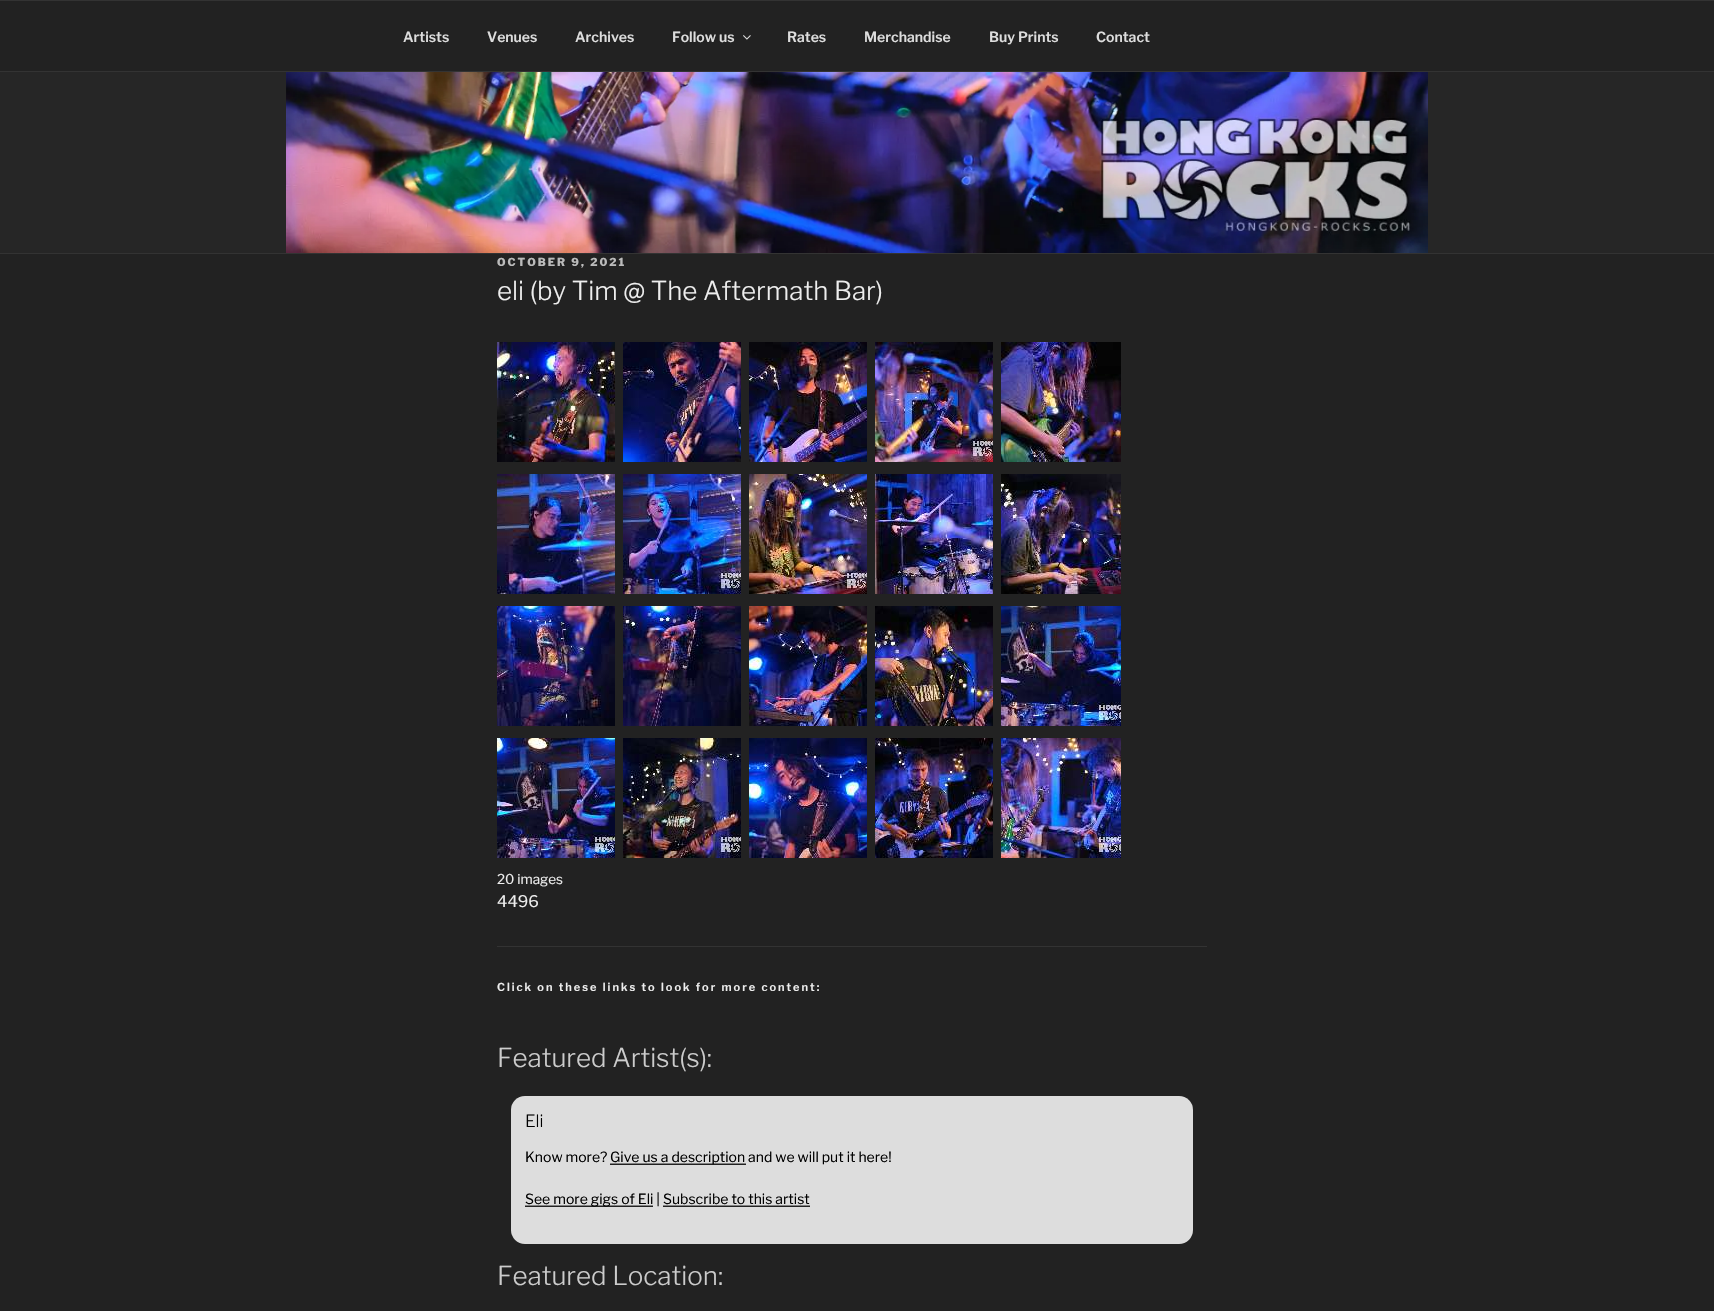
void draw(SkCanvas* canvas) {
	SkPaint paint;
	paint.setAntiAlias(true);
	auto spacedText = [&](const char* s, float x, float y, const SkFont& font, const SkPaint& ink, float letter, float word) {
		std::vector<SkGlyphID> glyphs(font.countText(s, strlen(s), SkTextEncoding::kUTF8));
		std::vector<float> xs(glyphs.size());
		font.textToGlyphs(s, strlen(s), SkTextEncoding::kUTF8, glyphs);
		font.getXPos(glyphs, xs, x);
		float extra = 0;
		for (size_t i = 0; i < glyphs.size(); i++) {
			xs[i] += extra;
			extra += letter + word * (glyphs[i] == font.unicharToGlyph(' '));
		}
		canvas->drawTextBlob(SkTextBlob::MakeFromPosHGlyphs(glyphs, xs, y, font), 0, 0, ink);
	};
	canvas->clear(0xff222222);
	paint.setColor(0xff333333);
	canvas->drawRect(SkRect::MakeXYWH(0, 0, 1714, 1), paint);
	canvas->drawRect(SkRect::MakeXYWH(0, 71, 1714, 1), paint);
	SkFont f1(fontMgr->matchFamilyStyle("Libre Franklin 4", SkFontStyle(100, SkFontStyle::kNormal_Width, SkFontStyle::kUpright_Slant)), 14);
	f1.setSubpixel(true);
	paint.setColor(0xffdddddd);
	canvas->drawString("Artists", 403, 42, f1, paint);
	canvas->drawString("Venues", 487, 42, f1, paint);
	canvas->drawString("Archives", 575, 42, f1, paint);
	canvas->drawString("Follow us", 672, 42, f1, paint);
	canvas->drawImageRect(SkImages::DeferredFromEncodedData(SkData::MakeFromFileName("img1.png")), SkRect::MakeXYWH(743, 35, 8, 5), SkSamplingOptions());
	canvas->drawString("Rates", 787, 42, f1, paint);
	canvas->drawString("Merchandise", 864, 42, f1, paint);
	canvas->drawString("Buy Prints", 989, 42, f1, paint);
	canvas->drawString("Contact", 1096, 42, f1, paint);
	paint.setColor(0xff262626);
	canvas->drawRect(SkRect::MakeXYWH(0, 72, 1714, 181), paint);
	paint.setColor(0xff333333);
	canvas->drawRect(SkRect::MakeXYWH(0, 253, 1714, 1), paint);
	canvas->drawImageRect(SkImages::DeferredFromEncodedData(SkData::MakeFromFileName("img2.png")), SkRect::MakeXYWH(286, 72, 1142, 181), SkSamplingOptions());
	SkFont f2(fontMgr->matchFamilyStyle("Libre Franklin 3", SkFontStyle(100, SkFontStyle::kNormal_Width, SkFontStyle::kUpright_Slant)), 11);
	f2.setSubpixel(true);
	paint.setColor(0xffbbbbbb);
	spacedText("OCTOBER 9, 2021", 497, 266, f2, paint, 2, 0);
	SkFont f3(fontMgr->matchFamilyStyle("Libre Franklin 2", SkFontStyle(100, SkFontStyle::kNormal_Width, SkFontStyle::kUpright_Slant)), 26);
	f3.setSubpixel(true);
	paint.setColor(0xffeeeeee);
	canvas->drawString("eli (by Tim @ The Aftermath Bar)", 497, 300, f3, paint);
	canvas->drawImageRect(SkImages::DeferredFromEncodedData(SkData::MakeFromFileName("img3.png")), SkRect::MakeXYWH(497, 342, 118, 120), SkSamplingOptions());
	canvas->drawImageRect(SkImages::DeferredFromEncodedData(SkData::MakeFromFileName("img4.png")), SkRect::MakeXYWH(623, 342, 118, 120), SkSamplingOptions());
	canvas->drawImageRect(SkImages::DeferredFromEncodedData(SkData::MakeFromFileName("img5.png")), SkRect::MakeXYWH(749, 342, 118, 120), SkSamplingOptions());
	canvas->drawImageRect(SkImages::DeferredFromEncodedData(SkData::MakeFromFileName("img6.png")), SkRect::MakeXYWH(875, 342, 118, 120), SkSamplingOptions());
	canvas->drawImageRect(SkImages::DeferredFromEncodedData(SkData::MakeFromFileName("img7.png")), SkRect::MakeXYWH(1001, 342, 120, 120), SkSamplingOptions());
	canvas->drawImageRect(SkImages::DeferredFromEncodedData(SkData::MakeFromFileName("img8.png")), SkRect::MakeXYWH(497, 474, 118, 120), SkSamplingOptions());
	canvas->drawImageRect(SkImages::DeferredFromEncodedData(SkData::MakeFromFileName("img9.png")), SkRect::MakeXYWH(623, 474, 118, 120), SkSamplingOptions());
	canvas->drawImageRect(SkImages::DeferredFromEncodedData(SkData::MakeFromFileName("img10.png")), SkRect::MakeXYWH(749, 474, 118, 120), SkSamplingOptions());
	canvas->drawImageRect(SkImages::DeferredFromEncodedData(SkData::MakeFromFileName("img11.png")), SkRect::MakeXYWH(875, 474, 118, 120), SkSamplingOptions());
	canvas->drawImageRect(SkImages::DeferredFromEncodedData(SkData::MakeFromFileName("img12.png")), SkRect::MakeXYWH(1001, 474, 120, 120), SkSamplingOptions());
	canvas->drawImageRect(SkImages::DeferredFromEncodedData(SkData::MakeFromFileName("img13.png")), SkRect::MakeXYWH(497, 606, 118, 120), SkSamplingOptions());
	canvas->drawImageRect(SkImages::DeferredFromEncodedData(SkData::MakeFromFileName("img14.png")), SkRect::MakeXYWH(623, 606, 118, 120), SkSamplingOptions());
	canvas->drawImageRect(SkImages::DeferredFromEncodedData(SkData::MakeFromFileName("img15.png")), SkRect::MakeXYWH(749, 606, 118, 120), SkSamplingOptions());
	canvas->drawImageRect(SkImages::DeferredFromEncodedData(SkData::MakeFromFileName("img16.png")), SkRect::MakeXYWH(875, 606, 118, 120), SkSamplingOptions());
	canvas->drawImageRect(SkImages::DeferredFromEncodedData(SkData::MakeFromFileName("img17.png")), SkRect::MakeXYWH(1001, 606, 120, 120), SkSamplingOptions());
	canvas->drawImageRect(SkImages::DeferredFromEncodedData(SkData::MakeFromFileName("img18.png")), SkRect::MakeXYWH(497, 738, 118, 120), SkSamplingOptions());
	canvas->drawImageRect(SkImages::DeferredFromEncodedData(SkData::MakeFromFileName("img19.png")), SkRect::MakeXYWH(623, 738, 118, 120), SkSamplingOptions());
	canvas->drawImageRect(SkImages::DeferredFromEncodedData(SkData::MakeFromFileName("img20.png")), SkRect::MakeXYWH(749, 738, 118, 120), SkSamplingOptions());
	canvas->drawImageRect(SkImages::DeferredFromEncodedData(SkData::MakeFromFileName("img21.png")), SkRect::MakeXYWH(875, 738, 118, 120), SkSamplingOptions());
	canvas->drawImageRect(SkImages::DeferredFromEncodedData(SkData::MakeFromFileName("img22.png")), SkRect::MakeXYWH(1001, 738, 120, 120), SkSamplingOptions());
	SkFont f4(fontMgr->matchFamilyStyle("Libre Franklin", SkFontStyle(100, SkFontStyle::kNormal_Width, SkFontStyle::kUpright_Slant)), 13.5);
	f4.setSubpixel(true);
	canvas->drawString("20 images", 497, 884, f4, paint);
	SkFont f5(fontMgr->matchFamilyStyle("Libre Franklin", SkFontStyle(100, SkFontStyle::kNormal_Width, SkFontStyle::kUpright_Slant)), 16);
	f5.setSubpixel(true);
	canvas->drawString("4496", 497, 907, f5, paint);
	paint.setColor(0xff333333);
	canvas->drawRect(SkRect::MakeXYWH(497, 946, 710, 1), paint);
	SkFont f6(fontMgr->matchFamilyStyle("Libre Franklin 4", SkFontStyle(100, SkFontStyle::kNormal_Width, SkFontStyle::kUpright_Slant)), 11);
	f6.setSubpixel(true);
	paint.setColor(0xffeeeeee);
	spacedText("Click on these links to look for more content:", 497, 991, f6, paint, 2, 0);
	paint.setColor(0xffcccccc);
	canvas->drawString("Featured Artist(s):", 497, 1067, f3, paint);
	paint.setColor(0xffdddddd);
	canvas->drawRoundRect(SkRect::MakeXYWH(511, 1096, 682, 148), 14, 14, paint);
	SkFont f7(fontMgr->matchFamilyStyle("Libre Franklin 2", SkFontStyle(100, SkFontStyle::kNormal_Width, SkFontStyle::kUpright_Slant)), 17);
	f7.setSubpixel(true);
	paint.setColor(0xff000000);
	canvas->drawString("Eli", 525, 1127, f7, paint);
	SkFont f8(fontMgr->matchFamilyStyle("Libre Franklin", SkFontStyle(100, SkFontStyle::kNormal_Width, SkFontStyle::kUpright_Slant)), 14);
	f8.setSubpixel(true);
	canvas->drawString("Know more?", 525, 1162, f8, paint);
	paint.setColor(0xff222222);
	canvas->drawRect(SkRect::MakeXYWH(610, 1164, 136, 1), paint);
	paint.setColor(0xff808080);
	canvas->drawRect(SkRect::MakeXYWH(610, 1163, 136, 1), paint);
	paint.setColor(0xff000000);
	canvas->drawString("Give us a description and we will put it here!", 610, 1162, f8, paint);
	paint.setColor(0xff222222);
	canvas->drawRect(SkRect::MakeXYWH(525, 1206, 128, 1), paint);
	paint.setColor(0xff808080);
	canvas->drawRect(SkRect::MakeXYWH(525, 1205, 128, 1), paint);
	paint.setColor(0xff000000);
	canvas->drawString("See more gigs of Eli | Subscribe to this artist", 525, 1204, f8, paint);
	paint.setColor(0xff808080);
	canvas->drawRect(SkRect::MakeXYWH(663, 1205, 147, 1), paint);
	paint.setColor(0xff222222);
	canvas->drawRect(SkRect::MakeXYWH(663, 1206, 147, 1), paint);
	paint.setColor(0xffcccccc);
	canvas->drawString("Featured Location:", 497, 1285, f3, paint);
}
